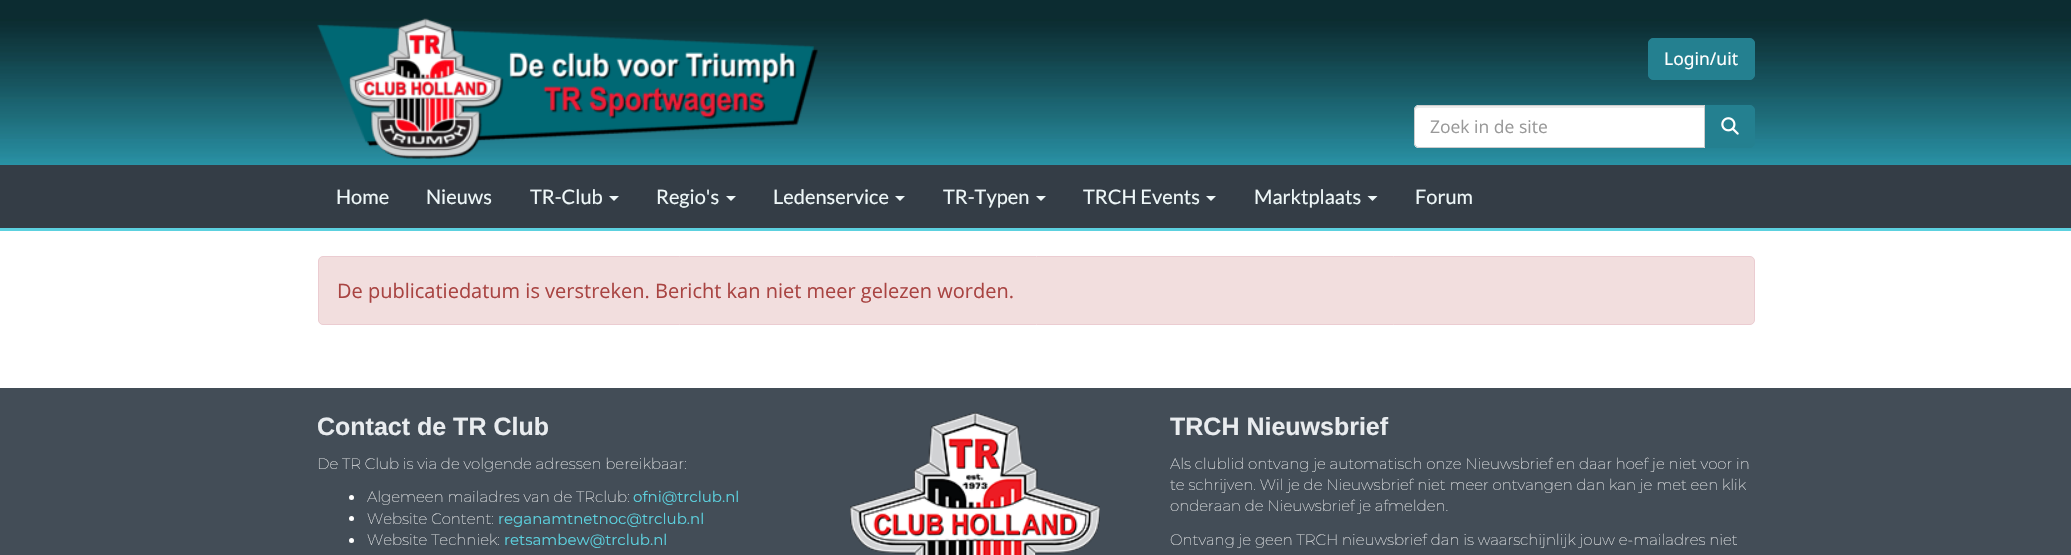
void draw(SkCanvas* canvas) {
	SkPaint paint;
	paint.setAntiAlias(true);
	auto svgPath = [&](const char* data, bool evenOdd = false) {
		SkPath result = *SkParsePath::FromSVGString(data);
		if (evenOdd) result.setFillType(SkPathFillType::kEvenOdd);
		return result;
	};
	canvas->clear(0xffffffff);
	paint.setColor(0xff0c2c31);
	canvas->drawRect(SkRect::MakeXYWH(0, 0, 2071, 19), paint);
	canvas->drawImageRect(SkImages::DeferredFromEncodedData(SkData::MakeFromFileName("img1.png")), SkRect::MakeXYWH(0, 19, 2071, 146), SkSamplingOptions());
	canvas->drawImageRect(SkImages::DeferredFromEncodedData(SkData::MakeFromFileName("img2.png")), SkRect::MakeXYWH(317, 18, 501, 141), SkSamplingOptions());
	paint.setColor(0xff248090);
	canvas->drawRoundRect(SkRect::MakeXYWH(1648.5, 38.5, 106, 41), 4.5, 4.5, paint);
	paint.setStroke(true);
	paint.setStrokeWidth(1);
	canvas->drawRoundRect(SkRect::MakeXYWH(1648.5, 38.5, 106, 41), 4.5, 4.5, paint);
	SkFont f1(fontMgr->matchFamilyStyle("Noto Sans", SkFontStyle::Normal()), 17.5);
	f1.setSubpixel(true);
	paint.setStroke(false);
	paint.setColor(0xffffffff);
	canvas->drawString("Login/uit", 1664, 65, f1, paint);
	canvas->drawPath(svgPath("M1419 105H1705V148H1419C1416 148 1414 146 1414 143V110C1414 107 1416 105 1419 105Z"), paint);
	paint.setColor(0xffececec);
	canvas->drawPath(svgPath("M1419 108H1704V106H1419C1416 106 1415 108 1415 111C1415 109 1417 108 1419 108Z"), paint);
	paint.setStroke(true);
	paint.setColor(0xffcccccc);
	canvas->drawPath(svgPath("M1419 105.5H1704.5V147.5H1419C1416.5 147.5 1414.5 145.5 1414.5 143V110C1414.5 107.5 1416.5 105.5 1419 105.5Z"), paint);
	SkFont f2(fontMgr->matchFamilyStyle("Open Sans", SkFontStyle::Normal()), 17.5);
	f2.setSubpixel(true);
	paint.setStroke(false);
	paint.setColor(0xff999999);
	canvas->drawString("Zoek in de site", 1430, 133, f2, paint);
	paint.setColor(0xff248090);
	canvas->drawPath(svgPath("M1705.5 105.5H1750C1752.5 105.5 1754.5 107.5 1754.5 110V143C1754.5 145.5 1752.5 147.5 1750 147.5H1705.5Z"), paint);
	paint.setStroke(true);
	canvas->drawPath(svgPath("M1705.5 105.5H1750C1752.5 105.5 1754.5 107.5 1754.5 110V143C1754.5 145.5 1752.5 147.5 1750 147.5H1705.5Z"), paint);
	canvas->drawImageRect(SkImages::DeferredFromEncodedData(SkData::MakeFromFileName("img3.png")), SkRect::MakeXYWH(1721, 117, 18, 18), SkSamplingOptions());
	paint.setStroke(false);
	paint.setColor(0xff343d46);
	canvas->drawRect(SkRect::MakeXYWH(0, 165, 2071, 63), paint);
	paint.setColor(0xff5cd1df);
	canvas->drawRect(SkRect::MakeXYWH(0, 228, 2071, 3), paint);
	SkFont f3(fontMgr->matchFamilyStyle("Lato", SkFontStyle::Normal()), 20);
	f3.setSubpixel(true);
	paint.setColor(0xffeef7f8);
	canvas->drawString("Home", 336, 204, f3, paint);
	canvas->drawString("Nieuws", 426, 204, f3, paint);
	canvas->drawString("TR-Club", 530, 204, f3, paint);
	canvas->drawPath(svgPath("M609 196H619L614 201Z"), paint);
	canvas->drawString("Regio's", 656, 204, f3, paint);
	canvas->drawPath(svgPath("M726 196H736L731 201Z"), paint);
	canvas->drawString("Ledenservice", 773, 204, f3, paint);
	canvas->drawPath(svgPath("M895 196H905L900 201Z"), paint);
	canvas->drawString("TR-Typen", 943, 204, f3, paint);
	canvas->drawPath(svgPath("M1036 196H1046L1041 201Z"), paint);
	canvas->drawString("TRCH Events", 1083, 204, f3, paint);
	canvas->drawPath(svgPath("M1206 196H1216L1211 201Z"), paint);
	canvas->drawString("Marktplaats", 1254, 204, f3, paint);
	canvas->drawPath(svgPath("M1367.5 196H1377.5L1372.5 201Z"), paint);
	canvas->drawString("Forum", 1415, 204, f3, paint);
	paint.setColor(0xfff2dede);
	canvas->drawRoundRect(SkRect::MakeXYWH(318.5, 256.5, 1436, 68), 4.5, 4.5, paint);
	paint.setStroke(true);
	paint.setColor(0xffebccd1);
	canvas->drawRoundRect(SkRect::MakeXYWH(318.5, 256.5, 1436, 68), 4.5, 4.5, paint);
	SkFont f4(fontMgr->matchFamilyStyle("Open Sans", SkFontStyle::Normal()), 20);
	f4.setSubpixel(true);
	paint.setStroke(false);
	paint.setColor(0xffa94442);
	canvas->drawString("De publicatiedatum is verstreken. Bericht kan niet meer gelezen worden.", 337, 298, f4, paint);
	paint.setColor(0xff434d57);
	canvas->drawRect(SkRect::MakeXYWH(0, 388, 2071, 167), paint);
	SkFont f5(fontMgr->matchFamilyStyle("Liberation Sans", SkFontStyle::Bold()), 25);
	f5.setSubpixel(true);
	paint.setColor(0xffe9ecef);
	canvas->drawString("Contact de TR Club", 317, 435, f5, paint);
	SkFont f6(fontMgr->matchFamilyStyle("Montserrat", SkFontStyle(100, SkFontStyle::kNormal_Width, SkFontStyle::kUpright_Slant)), 15);
	f6.setSubpixel(true);
	paint.setColor(0xffffffff);
	canvas->drawString("De TR Club is via de volgende adressen bereikbaar:", 317, 469, f6, paint);
	canvas->drawCircle(351.5, 497.5, 2.5, paint);
	canvas->drawString("Algemeen mailadres van de TRclub:", 367, 502, f6, paint);
	SkFont f7(fontMgr->matchFamilyStyle("Montserrat", SkFontStyle::Normal()), 15);
	f7.setSubpixel(true);
	paint.setColor(0xff5cd1df);
	canvas->drawString("ofni@trclub.nl", 633, 502, f7, paint);
	paint.setColor(0xffffffff);
	canvas->drawCircle(351.5, 518.5, 2.5, paint);
	canvas->drawString("Website Content:", 367, 524, f6, paint);
	paint.setColor(0xff5cd1df);
	canvas->drawString("reganamtnetnoc@trclub.nl", 498, 524, f7, paint);
	paint.setColor(0xffffffff);
	canvas->drawCircle(351.5, 540.5, 2.5, paint);
	canvas->drawString("Website Techniek:", 367, 545, f6, paint);
	paint.setColor(0xff5cd1df);
	canvas->drawString("retsambew@trclub.nl", 504, 545, f7, paint);
	canvas->drawImageRect(SkImages::DeferredFromEncodedData(SkData::MakeFromFileName("img4.png")), SkRect::MakeXYWH(850, 412, 250, 143), SkSamplingOptions());
	paint.setColor(0xffe9ecef);
	canvas->drawString("TRCH Nieuwsbrief", 1170, 435, f5, paint);
	paint.setColor(0xffffffff);
	canvas->drawString("Als clublid ontvang je automatisch onze Nieuwsbrief en daar hoef je niet voor in", 1170, 469, f6, paint);
	canvas->drawString("te schrijven. Wil je de Nieuwsbrief niet meer ontvangen dan kan je met een klik", 1170, 490, f6, paint);
	canvas->drawString("onderaan de Nieuwsbrief je afmelden.", 1170, 511, f6, paint);
	canvas->drawString("Ontvang je geen TRCH nieuwsbrief dan is waarschijnlijk jouw e-mailadres niet", 1170, 545, f6, paint);
}
